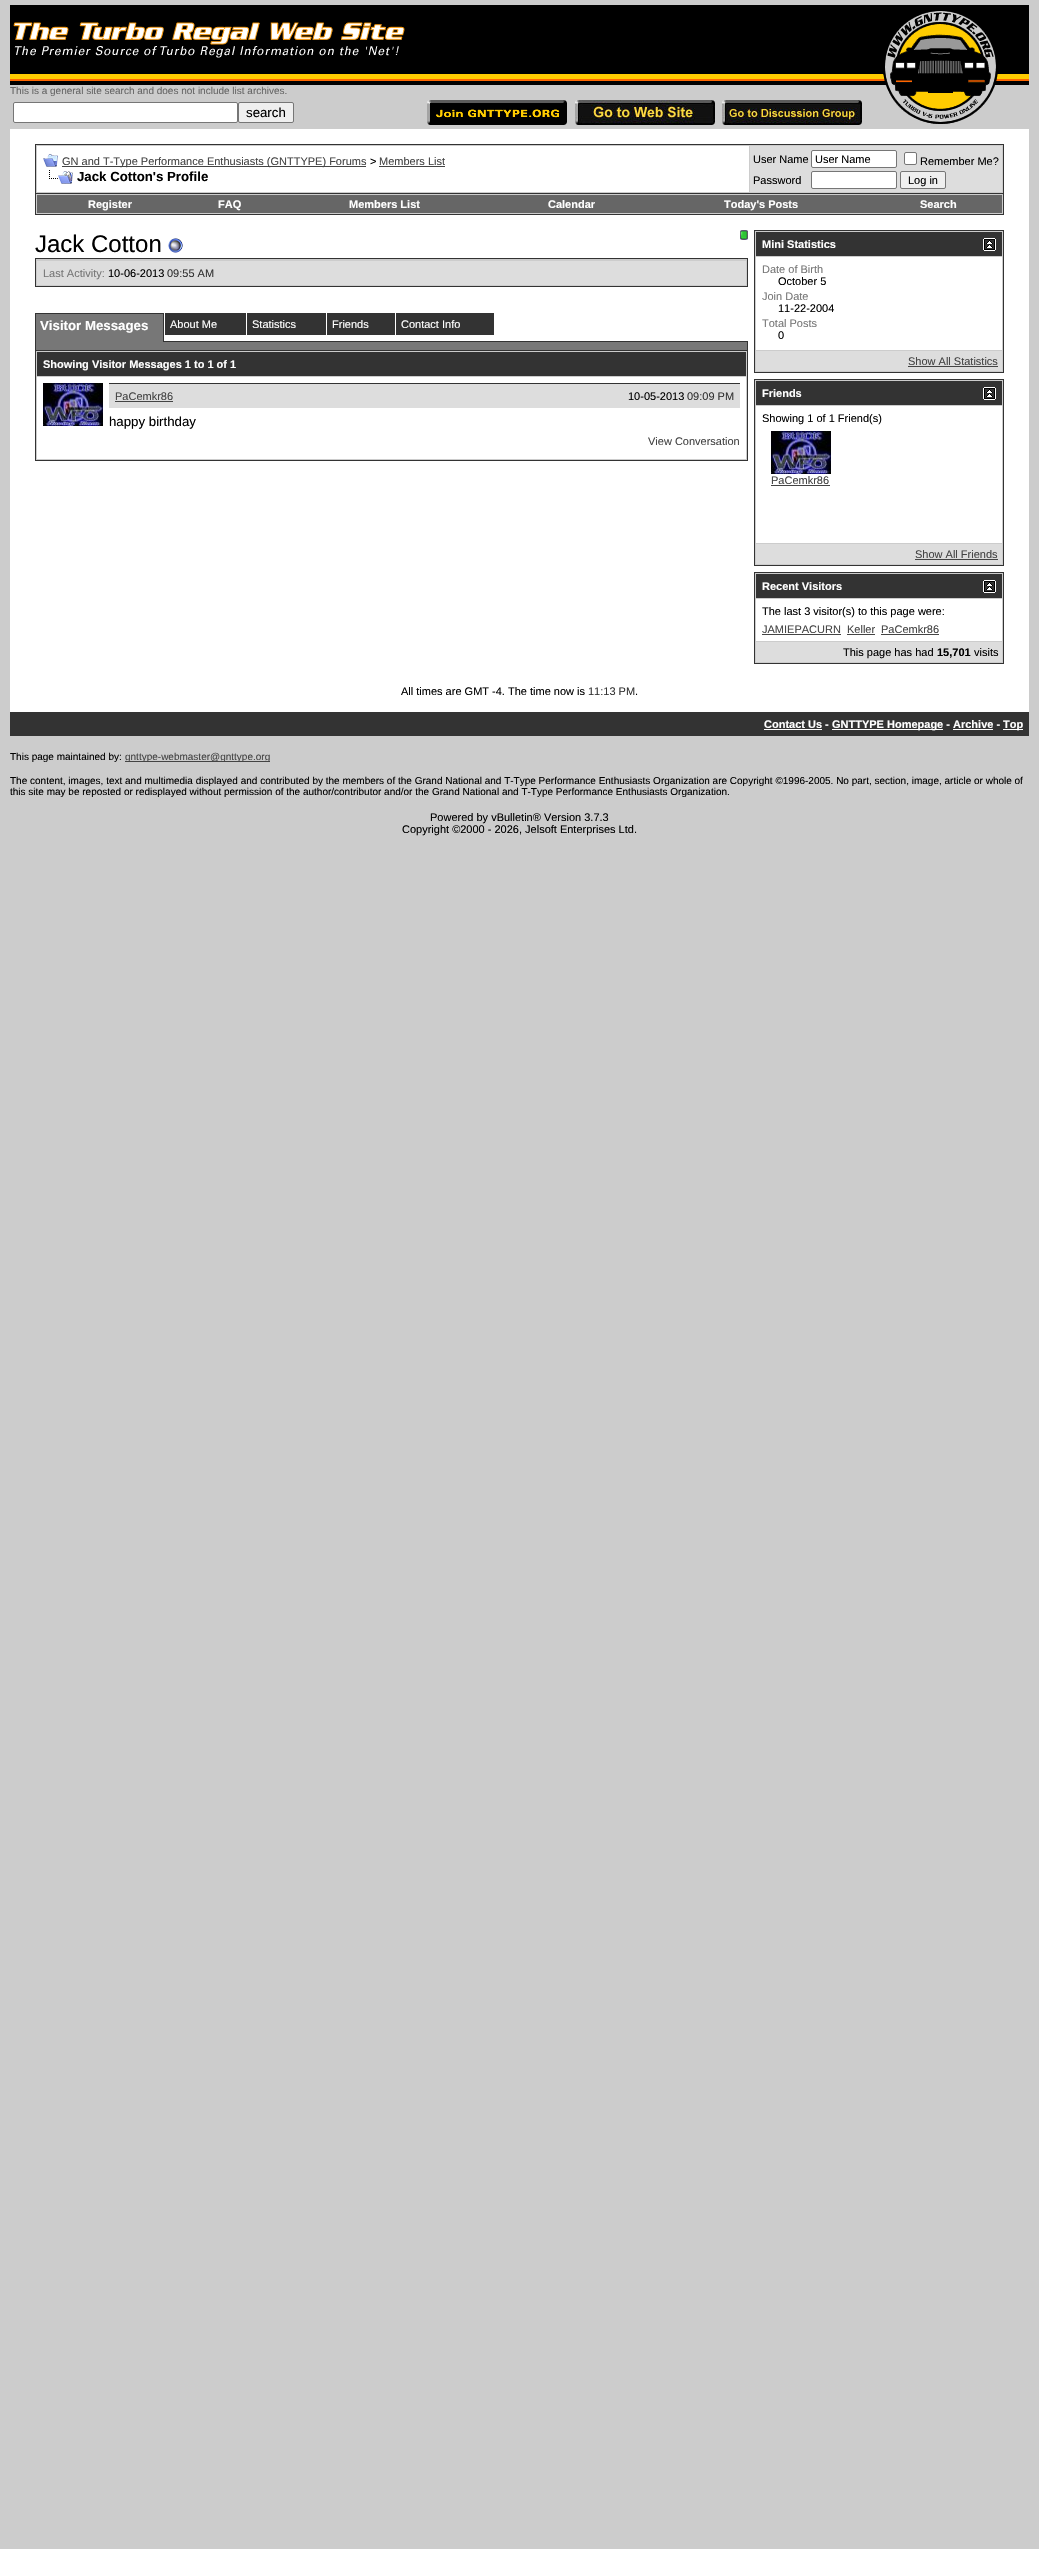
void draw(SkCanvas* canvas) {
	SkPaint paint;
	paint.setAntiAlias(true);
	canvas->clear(0xffcccccc);
	paint.setColor(0xff000000);
	canvas->drawRect(SkRect::MakeXYWH(10, 5, 860, 69), paint);
	canvas->drawImageRect(SkImages::DeferredFromEncodedData(SkData::MakeFromFileName("img1.png")), SkRect::MakeXYWH(13, 22, 392, 36), SkSamplingOptions());
	canvas->drawImageRect(SkImages::DeferredFromEncodedData(SkData::MakeFromFileName("img2.png")), SkRect::MakeXYWH(870, 5, 159, 119), SkSamplingOptions());
	paint.setColor(0xffffcc00);
	canvas->drawRect(SkRect::MakeXYWH(10, 74, 860, 5), paint);
	paint.setColor(0xffff6600);
	canvas->drawRect(SkRect::MakeXYWH(10, 79, 860, 2), paint);
	paint.setColor(0xff000000);
	canvas->drawRect(SkRect::MakeXYWH(10, 81, 860, 4), paint);
	SkFont f1(fontMgr->matchFamilyStyle("Liberation Sans", SkFontStyle::Normal()), 10);
	f1.setSubpixel(true);
	paint.setColor(0xff666666);
	canvas->drawString("This is a general site search and does not include list archives.", 10, 94, f1, paint);
	paint.setColor(0xffffffff);
	canvas->drawRoundRect(SkRect::MakeXYWH(13.5, 102.5, 224, 20), 1.5, 1.5, paint);
	paint.setStroke(true);
	paint.setStrokeWidth(1);
	paint.setColor(0xff767676);
	canvas->drawRoundRect(SkRect::MakeXYWH(13.5, 102.5, 224, 20), 1.5, 1.5, paint);
	paint.setStroke(false);
	paint.setColor(0xffefefef);
	canvas->drawRoundRect(SkRect::MakeXYWH(238.5, 102.5, 55, 20), 1.5, 1.5, paint);
	paint.setStroke(true);
	paint.setColor(0xff767676);
	canvas->drawRoundRect(SkRect::MakeXYWH(238.5, 102.5, 55, 20), 1.5, 1.5, paint);
	SkFont f2(fontMgr->matchFamilyStyle("Liberation Sans", SkFontStyle::Normal()), 13.25);
	f2.setSubpixel(true);
	paint.setStroke(false);
	paint.setColor(0xff000000);
	canvas->drawString("search", 246, 117, f2, paint);
	canvas->drawImageRect(SkImages::DeferredFromEncodedData(SkData::MakeFromFileName("img3.png")), SkRect::MakeXYWH(427, 100, 140, 25), SkSamplingOptions());
	canvas->drawImageRect(SkImages::DeferredFromEncodedData(SkData::MakeFromFileName("img4.png")), SkRect::MakeXYWH(575, 100, 140, 25), SkSamplingOptions());
	canvas->drawImageRect(SkImages::DeferredFromEncodedData(SkData::MakeFromFileName("img5.png")), SkRect::MakeXYWH(722, 100, 140, 25), SkSamplingOptions());
	paint.setColor(0xffffffff);
	canvas->drawRect(SkRect::MakeXYWH(10, 129, 1019, 583), paint);
	paint.setColor(0xffcccccc);
	canvas->drawRect(SkRect::MakeXYWH(35.5, 144.5, 968, 49), paint);
	paint.setStroke(true);
	paint.setColor(0xff333333);
	canvas->drawRect(SkRect::MakeXYWH(35.5, 144.5, 968, 49), paint);
	paint.setStroke(false);
	paint.setColor(0xffffffff);
	canvas->drawRect(SkRect::MakeXYWH(37, 146, 712, 46), paint);
	canvas->drawImageRect(SkImages::DeferredFromEncodedData(SkData::MakeFromFileName("img6.png")), SkRect::MakeXYWH(43, 154, 15, 13), SkSamplingOptions());
	paint.setColor(0xff444444);
	canvas->drawRect(SkRect::MakeXYWH(62, 166, 304, 1), paint);
	SkFont f3(fontMgr->matchFamilyStyle("Liberation Sans", SkFontStyle::Normal()), 11);
	f3.setSubpixel(true);
	canvas->drawString("GN and T-Type Performance Enthusiasts (GNTTYPE) Forums", 62, 165, f3, paint);
	paint.setColor(0xff000000);
	canvas->drawString(">", 370, 165, f3, paint);
	paint.setColor(0xff444444);
	canvas->drawString("Members List", 379, 165, f3, paint);
	canvas->drawRect(SkRect::MakeXYWH(379, 166, 66, 1), paint);
	canvas->drawImageRect(SkImages::DeferredFromEncodedData(SkData::MakeFromFileName("img7.png")), SkRect::MakeXYWH(49, 170, 24, 14), SkSamplingOptions());
	SkFont f4(fontMgr->matchFamilyStyle("Liberation Sans", SkFontStyle::Bold()), 13.25);
	f4.setSubpixel(true);
	paint.setColor(0xff000000);
	canvas->drawString("Jack Cotton's Profile", 77, 181, f4, paint);
	paint.setColor(0xffdddddd);
	canvas->drawRect(SkRect::MakeXYWH(750, 146, 252, 46), paint);
	paint.setColor(0xff000000);
	canvas->drawString("User Name", 753, 163, f3, paint);
	paint.setColor(0xffffffff);
	canvas->drawRoundRect(SkRect::MakeXYWH(811.5, 150.5, 85, 17), 1.5, 1.5, paint);
	paint.setStroke(true);
	paint.setColor(0xff767676);
	canvas->drawRoundRect(SkRect::MakeXYWH(811.5, 150.5, 85, 17), 1.5, 1.5, paint);
	paint.setStroke(false);
	paint.setColor(0xff000000);
	canvas->drawString("User Name", 815, 163, f3, paint);
	paint.setColor(0xffffffff);
	canvas->drawRoundRect(SkRect::MakeXYWH(904.5, 152.5, 12, 12), 1.5, 1.5, paint);
	paint.setStroke(true);
	paint.setColor(0xff767676);
	canvas->drawRoundRect(SkRect::MakeXYWH(904.5, 152.5, 12, 12), 1.5, 1.5, paint);
	paint.setStroke(false);
	paint.setColor(0xff000000);
	canvas->drawString("Remember Me?", 920, 165, f3, paint);
	canvas->drawString("Password", 753, 184, f3, paint);
	paint.setColor(0xffffffff);
	canvas->drawRoundRect(SkRect::MakeXYWH(811.5, 171.5, 85, 17), 1.5, 1.5, paint);
	paint.setStroke(true);
	paint.setColor(0xff767676);
	canvas->drawRoundRect(SkRect::MakeXYWH(811.5, 171.5, 85, 17), 1.5, 1.5, paint);
	paint.setStroke(false);
	paint.setColor(0xffefefef);
	canvas->drawRoundRect(SkRect::MakeXYWH(900.5, 171.5, 45, 17), 1.5, 1.5, paint);
	paint.setStroke(true);
	paint.setColor(0xff767676);
	canvas->drawRoundRect(SkRect::MakeXYWH(900.5, 171.5, 45, 17), 1.5, 1.5, paint);
	paint.setStroke(false);
	paint.setColor(0xff000000);
	canvas->drawString("Log in", 908, 184, f3, paint);
	paint.setColor(0xffcccccc);
	canvas->drawRect(SkRect::MakeXYWH(36, 194, 967, 20), paint);
	paint.setColor(0xff333333);
	canvas->drawRect(SkRect::MakeXYWH(1003, 194, 1, 21), paint);
	canvas->drawRect(SkRect::MakeXYWH(35, 214, 969, 1), paint);
	canvas->drawRect(SkRect::MakeXYWH(35, 194, 1, 21), paint);
	paint.setColor(0xff666666);
	canvas->drawRect(SkRect::MakeXYWH(37, 195, 965, 18), paint);
	SkFont f5(fontMgr->matchFamilyStyle("Liberation Sans", SkFontStyle::Bold()), 11);
	f5.setSubpixel(true);
	paint.setColor(0xffffffff);
	canvas->drawString("Register", 88, 208, f5, paint);
	canvas->drawString("FAQ", 218, 208, f5, paint);
	canvas->drawString("Members List", 349, 208, f5, paint);
	canvas->drawString("Calendar", 548, 208, f5, paint);
	canvas->drawString("Today's Posts", 724, 208, f5, paint);
	canvas->drawString("Search", 920, 208, f5, paint);
	SkFont f6(fontMgr->matchFamilyStyle("Liberation Sans", SkFontStyle::Normal()), 24);
	f6.setSubpixel(true);
	paint.setColor(0xff000000);
	canvas->drawString("Jack Cotton", 35, 252, f6, paint);
	canvas->drawImageRect(SkImages::DeferredFromEncodedData(SkData::MakeFromFileName("img8.png")), SkRect::MakeXYWH(168, 238, 15, 15), SkSamplingOptions());
	canvas->drawImageRect(SkImages::DeferredFromEncodedData(SkData::MakeFromFileName("img9.png")), SkRect::MakeXYWH(740, 230, 8, 10), SkSamplingOptions());
	paint.setColor(0xffcccccc);
	canvas->drawRect(SkRect::MakeXYWH(35.5, 258.5, 712, 28), paint);
	paint.setStroke(true);
	paint.setColor(0xff333333);
	canvas->drawRect(SkRect::MakeXYWH(35.5, 258.5, 712, 28), paint);
	paint.setStroke(false);
	paint.setColor(0xffdddddd);
	canvas->drawRect(SkRect::MakeXYWH(37, 261, 709, 24), paint);
	paint.setColor(0xff777777);
	canvas->drawString("Last Activity:", 43, 277, f3, paint);
	paint.setColor(0xff000000);
	canvas->drawString("10-06-2013", 108, 277, f3, paint);
	paint.setColor(0xff333333);
	canvas->drawString("09:55 AM", 167, 277, f3, paint);
	paint.setColor(0xff777777);
	canvas->drawRect(SkRect::MakeXYWH(36, 314, 127, 28), paint);
	paint.setColor(0xff333333);
	canvas->drawRect(SkRect::MakeXYWH(35, 313, 129, 1), paint);
	canvas->drawRect(SkRect::MakeXYWH(163, 313, 1, 29), paint);
	canvas->drawRect(SkRect::MakeXYWH(35, 341, 1, 9), paint);
	canvas->drawRect(SkRect::MakeXYWH(35, 313, 1, 29), paint);
	paint.setColor(0xffffffff);
	canvas->drawString("Visitor Messages", 40, 330, f4, paint);
	paint.setColor(0xff333333);
	canvas->drawRect(SkRect::MakeXYWH(165, 313, 81, 22), paint);
	paint.setColor(0xffffffff);
	canvas->drawString("About Me", 170, 328, f3, paint);
	paint.setColor(0xff333333);
	canvas->drawRect(SkRect::MakeXYWH(247, 313, 79, 22), paint);
	paint.setColor(0xffffffff);
	canvas->drawString("Statistics", 252, 328, f3, paint);
	paint.setColor(0xff333333);
	canvas->drawRect(SkRect::MakeXYWH(327, 313, 68, 22), paint);
	paint.setColor(0xffffffff);
	canvas->drawString("Friends", 332, 328, f3, paint);
	paint.setColor(0xff333333);
	canvas->drawRect(SkRect::MakeXYWH(396, 313, 98, 22), paint);
	paint.setColor(0xffffffff);
	canvas->drawString("Contact Info", 401, 328, f3, paint);
	paint.setColor(0xff777777);
	canvas->drawRect(SkRect::MakeXYWH(36, 342, 711, 8), paint);
	paint.setColor(0xff333333);
	canvas->drawRect(SkRect::MakeXYWH(164, 341, 584, 1), paint);
	canvas->drawRect(SkRect::MakeXYWH(747, 341, 1, 9), paint);
	paint.setColor(0xffcccccc);
	canvas->drawRect(SkRect::MakeXYWH(35.5, 350.5, 712, 110), paint);
	paint.setStroke(true);
	paint.setColor(0xff333333);
	canvas->drawRect(SkRect::MakeXYWH(35.5, 350.5, 712, 110), paint);
	paint.setStroke(false);
	canvas->drawRect(SkRect::MakeXYWH(37, 352, 709, 24), paint);
	paint.setColor(0xffffffff);
	canvas->drawString("Showing Visitor Messages 1 to 1 of 1", 43, 368, f5, paint);
	canvas->drawRect(SkRect::MakeXYWH(37, 377, 709, 82), paint);
	canvas->drawImageRect(SkImages::DeferredFromEncodedData(SkData::MakeFromFileName("img10.png")), SkRect::MakeXYWH(43, 383, 60, 43), SkSamplingOptions());
	paint.setColor(0xff333333);
	canvas->drawRect(SkRect::MakeXYWH(109, 383, 631, 1), paint);
	paint.setColor(0xffdddddd);
	canvas->drawRect(SkRect::MakeXYWH(109, 384, 631, 24), paint);
	paint.setColor(0xff444444);
	canvas->drawString("PaCemkr86", 115, 400, f3, paint);
	canvas->drawRect(SkRect::MakeXYWH(115, 401, 58, 1), paint);
	paint.setColor(0xff000000);
	canvas->drawString("10-05-2013", 628, 400, f3, paint);
	paint.setColor(0xff333333);
	canvas->drawString("09:09 PM", 687, 400, f3, paint);
	paint.setColor(0xff000000);
	canvas->drawString("happy birthday", 109, 426, f2, paint);
	paint.setColor(0xff444444);
	canvas->drawString("View Conversation", 648, 445, f3, paint);
	paint.setColor(0xffcccccc);
	canvas->drawRect(SkRect::MakeXYWH(754.5, 230.5, 249, 142), paint);
	paint.setStroke(true);
	paint.setColor(0xff333333);
	canvas->drawRect(SkRect::MakeXYWH(754.5, 230.5, 249, 142), paint);
	paint.setStroke(false);
	canvas->drawRect(SkRect::MakeXYWH(756, 232, 246, 24), paint);
	paint.setColor(0xffffffff);
	canvas->drawString("Mini Statistics", 762, 248, f5, paint);
	canvas->drawImageRect(SkImages::DeferredFromEncodedData(SkData::MakeFromFileName("img11.png")), SkRect::MakeXYWH(983, 238, 13, 13), SkSamplingOptions());
	canvas->drawRect(SkRect::MakeXYWH(756, 257, 246, 93), paint);
	paint.setColor(0xff777777);
	canvas->drawString("Date of Birth", 762, 273, f3, paint);
	paint.setColor(0xff000000);
	canvas->drawString("October 5", 778, 285, f3, paint);
	paint.setColor(0xff777777);
	canvas->drawString("Join Date", 762, 300, f3, paint);
	paint.setColor(0xff000000);
	canvas->drawString("11-22-2004", 778, 312, f3, paint);
	paint.setColor(0xff777777);
	canvas->drawString("Total Posts", 762, 327, f3, paint);
	paint.setColor(0xff000000);
	canvas->drawString("0", 778, 339, f3, paint);
	paint.setColor(0xffdddddd);
	canvas->drawRect(SkRect::MakeXYWH(756, 351, 246, 20), paint);
	paint.setColor(0xff444444);
	canvas->drawString("Show All Statistics", 908, 365, f3, paint);
	canvas->drawRect(SkRect::MakeXYWH(908, 366, 90, 1), paint);
	paint.setColor(0xffcccccc);
	canvas->drawRect(SkRect::MakeXYWH(754.5, 379.5, 249, 186), paint);
	paint.setStroke(true);
	paint.setColor(0xff333333);
	canvas->drawRect(SkRect::MakeXYWH(754.5, 379.5, 249, 186), paint);
	paint.setStroke(false);
	canvas->drawRect(SkRect::MakeXYWH(756, 381, 246, 24), paint);
	paint.setColor(0xffffffff);
	canvas->drawString("Friends", 762, 397, f5, paint);
	canvas->drawImageRect(SkImages::DeferredFromEncodedData(SkData::MakeFromFileName("img11.png")), SkRect::MakeXYWH(983, 387, 13, 13), SkSamplingOptions());
	canvas->drawRect(SkRect::MakeXYWH(756, 406, 246, 137), paint);
	paint.setColor(0xff000000);
	canvas->drawString("Showing 1 of 1 Friend(s)", 762, 422, f3, paint);
	canvas->drawImageRect(SkImages::DeferredFromEncodedData(SkData::MakeFromFileName("img10.png")), SkRect::MakeXYWH(771, 431, 60, 43), SkSamplingOptions());
	paint.setColor(0xff444444);
	canvas->drawString("PaCemkr86", 771, 484, f3, paint);
	canvas->drawRect(SkRect::MakeXYWH(771, 485, 59, 1), paint);
	paint.setColor(0xffdddddd);
	canvas->drawRect(SkRect::MakeXYWH(756, 544, 246, 20), paint);
	paint.setColor(0xff444444);
	canvas->drawString("Show All Friends", 915, 558, f3, paint);
	canvas->drawRect(SkRect::MakeXYWH(915, 559, 83, 1), paint);
	paint.setColor(0xffcccccc);
	canvas->drawRect(SkRect::MakeXYWH(754.5, 572.5, 249, 91), paint);
	paint.setStroke(true);
	paint.setColor(0xff333333);
	canvas->drawRect(SkRect::MakeXYWH(754.5, 572.5, 249, 91), paint);
	paint.setStroke(false);
	canvas->drawRect(SkRect::MakeXYWH(756, 574, 246, 24), paint);
	paint.setColor(0xffffffff);
	canvas->drawString("Recent Visitors", 762, 590, f5, paint);
	canvas->drawImageRect(SkImages::DeferredFromEncodedData(SkData::MakeFromFileName("img11.png")), SkRect::MakeXYWH(983, 580, 13, 13), SkSamplingOptions());
	canvas->drawRect(SkRect::MakeXYWH(756, 599, 246, 42), paint);
	paint.setColor(0xff000000);
	canvas->drawString("The last 3 visitor(s) to this page were:", 762, 615, f3, paint);
	paint.setColor(0xff444444);
	canvas->drawString("JAMIEPACURN", 762, 633, f3, paint);
	canvas->drawRect(SkRect::MakeXYWH(762, 634, 79, 1), paint);
	canvas->drawString("Keller", 847, 633, f3, paint);
	canvas->drawRect(SkRect::MakeXYWH(847, 634, 28, 1), paint);
	canvas->drawString("PaCemkr86", 881, 633, f3, paint);
	canvas->drawRect(SkRect::MakeXYWH(881, 634, 58, 1), paint);
	paint.setColor(0xffdddddd);
	canvas->drawRect(SkRect::MakeXYWH(756, 642, 246, 20), paint);
	paint.setColor(0xff000000);
	canvas->drawString("This page has had", 843, 656, f3, paint);
	canvas->drawString("15,701", 937, 656, f5, paint);
	canvas->drawString("visits", 974, 656, f3, paint);
	canvas->drawString("All times are GMT -4. The time now is", 401, 695, f3, paint);
	paint.setColor(0xff333333);
	canvas->drawString("11:13 PM", 588, 695, f3, paint);
	paint.setColor(0xff000000);
	canvas->drawString(".", 635, 695, f3, paint);
	paint.setColor(0xff333333);
	canvas->drawRect(SkRect::MakeXYWH(10, 712, 1019, 24), paint);
	paint.setColor(0xffffffff);
	canvas->drawString("Contact Us -", 764, 728, f5, paint);
	canvas->drawRect(SkRect::MakeXYWH(764, 729, 58, 1), paint);
	canvas->drawRect(SkRect::MakeXYWH(832, 729, 111, 1), paint);
	canvas->drawString("GNTTYPE Homepage - Archive -", 832, 728, f5, paint);
	canvas->drawRect(SkRect::MakeXYWH(953, 729, 40, 1), paint);
	canvas->drawRect(SkRect::MakeXYWH(1003, 729, 20, 1), paint);
	canvas->drawString("Top", 1003, 728, f5, paint);
	paint.setColor(0xff000000);
	canvas->drawString("This page maintained by:", 10, 760, f1, paint);
	paint.setColor(0xff444444);
	canvas->drawRect(SkRect::MakeXYWH(125, 761, 145, 1), paint);
	canvas->drawString("gnttype-webmaster@gnttype.org", 125, 760, f1, paint);
	paint.setColor(0xff000000);
	canvas->drawString("The content, images, text and multimedia displayed and contributed by the members of the Grand National and T-Type Performance Enthusiasts Organization are Copyright ©1996-2005. No part, section, image, article or whole of", 10, 784, f1, paint);
	canvas->drawString("this site may be reposted or redisplayed without permission of the author/contributor and/or the Grand National and T-Type Performance Enthusiasts Organization.", 10, 795, f1, paint);
	canvas->drawString("Powered by vBulletin® Version 3.7.3", 430, 821, f3, paint);
	canvas->drawString("Copyright ©2000 - 2026, Jelsoft Enterprises Ltd.", 402, 833, f3, paint);
}
